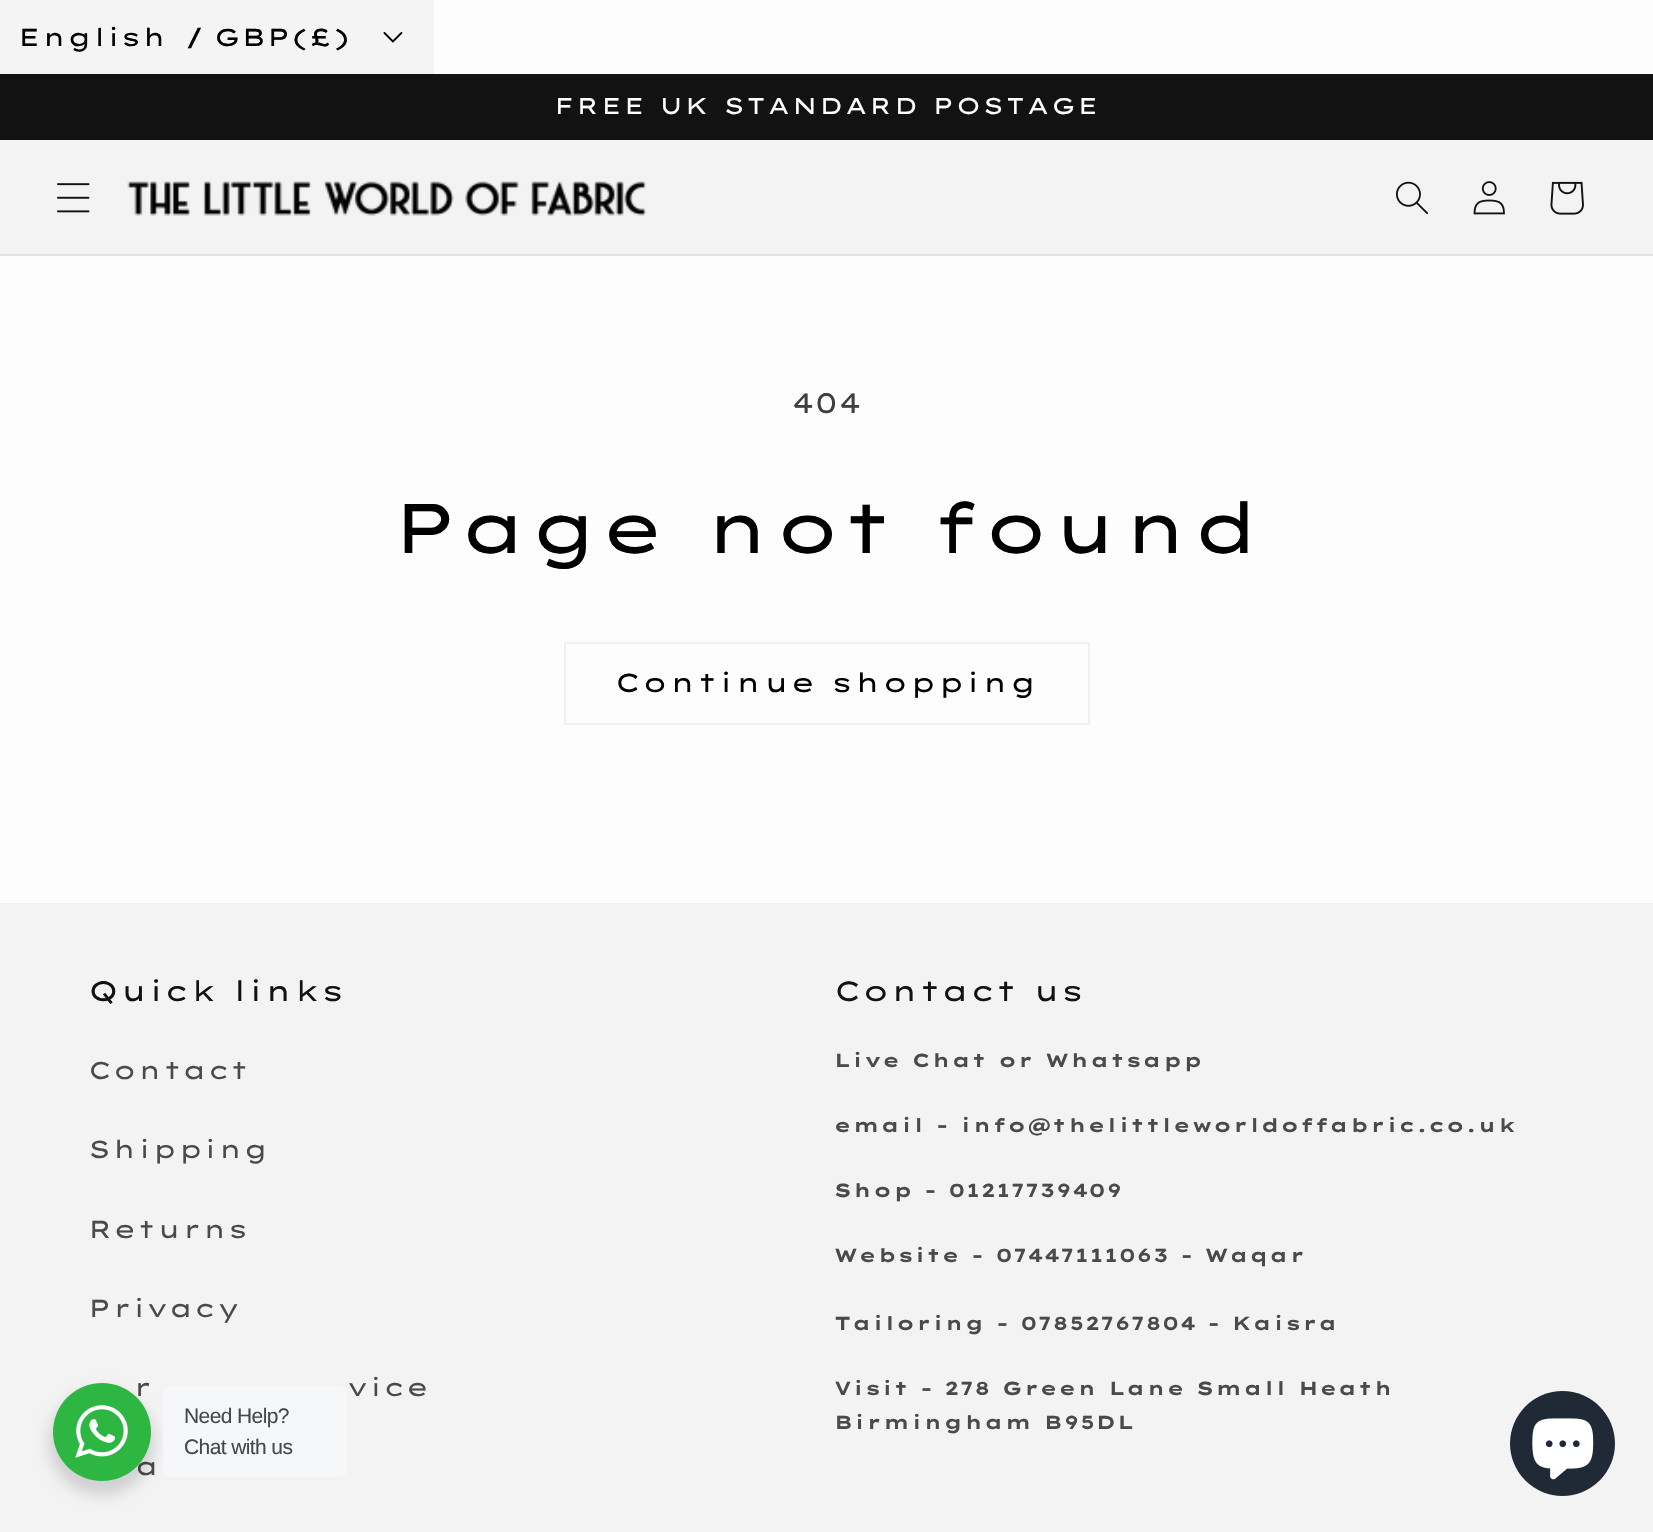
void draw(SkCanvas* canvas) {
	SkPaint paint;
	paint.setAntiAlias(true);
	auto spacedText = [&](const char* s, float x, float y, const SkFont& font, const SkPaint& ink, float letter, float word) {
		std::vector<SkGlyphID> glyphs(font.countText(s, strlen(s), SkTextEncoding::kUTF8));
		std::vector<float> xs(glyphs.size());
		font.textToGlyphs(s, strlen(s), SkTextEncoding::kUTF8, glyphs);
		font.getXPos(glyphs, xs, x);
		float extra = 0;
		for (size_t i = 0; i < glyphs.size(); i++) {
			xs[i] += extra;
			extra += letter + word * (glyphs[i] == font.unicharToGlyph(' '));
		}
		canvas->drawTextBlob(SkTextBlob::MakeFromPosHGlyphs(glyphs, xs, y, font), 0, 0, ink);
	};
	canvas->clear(0xfffdfdfd);
	paint.setColor(0xfff4f4f4);
	canvas->drawRect(SkRect::MakeXYWH(0, 0, 434, 74), paint);
	SkFont f1(fontMgr->matchFamilyStyle("Lexend Zetta", SkFontStyle::Normal()), 24.5);
	f1.setSubpixel(true);
	paint.setColor(0xff000000);
	spacedText("English", 18, 46, f1, paint, 1.05, 0);
	spacedText("/", 185, 45, f1, paint, 1.05, 0);
	spacedText("GBP(£)", 214, 46, f1, paint, 1.05, 0);
	canvas->drawImageRect(SkImages::DeferredFromEncodedData(SkData::MakeFromFileName("img1.png")), SkRect::MakeXYWH(383, 32, 20, 11), SkSamplingOptions());
	paint.setColor(0xff121212);
	canvas->drawRect(SkRect::MakeXYWH(0, 74, 1653, 66), paint);
	SkFont f2(fontMgr->matchFamilyStyle("Lexend Zetta", SkFontStyle::Normal()), 22.75);
	f2.setSubpixel(true);
	paint.setColor(0xffffffff);
	spacedText("FREE UK STANDARD POSTAGE", 554, 114, f2, paint, 1.75, 0);
	paint.setColor(0xfff3f3f3);
	canvas->drawRect(SkRect::MakeXYWH(0, 140, 1653, 114), paint);
	paint.setColor(0xffe1e1e1);
	canvas->drawRect(SkRect::MakeXYWH(0, 254, 1653, 2), paint);
	canvas->drawImageRect(SkImages::DeferredFromEncodedData(SkData::MakeFromFileName("img2.png")), SkRect::MakeXYWH(57, 183, 33, 30), SkSamplingOptions());
	canvas->drawImageRect(SkImages::DeferredFromEncodedData(SkData::MakeFromFileName("img3.png")), SkRect::MakeXYWH(127, 181, 519, 35), SkSamplingOptions());
	canvas->drawImageRect(SkImages::DeferredFromEncodedData(SkData::MakeFromFileName("img4.png")), SkRect::MakeXYWH(1396, 181, 32, 34), SkSamplingOptions());
	canvas->drawImageRect(SkImages::DeferredFromEncodedData(SkData::MakeFromFileName("img5.png")), SkRect::MakeXYWH(1473, 181, 32, 34), SkSamplingOptions());
	canvas->drawImageRect(SkImages::DeferredFromEncodedData(SkData::MakeFromFileName("img6.png")), SkRect::MakeXYWH(1550, 181, 34, 34), SkSamplingOptions());
	SkFont f3(fontMgr->matchFamilyStyle("Lexend Zetta", SkFontStyle::Normal()), 28);
	f3.setSubpixel(true);
	paint.setColor(0xff3f3f3f);
	spacedText("404", 792, 413, f3, paint, 1.05, 0);
	SkFont f4(fontMgr->matchFamilyStyle("Lexend Zetta", SkFontStyle::Normal()), 70);
	f4.setSubpixel(true);
	paint.setColor(0xff000000);
	spacedText("Page not found", 392, 553, f4, paint, 1.05, 0);
	paint.setStroke(true);
	paint.setStrokeWidth(2);
	paint.setColor(0xfff0f0f0);
	canvas->drawRect(SkRect::MakeXYWH(565, 643, 524, 81), paint);
	SkFont f5(fontMgr->matchFamilyStyle("Lexend Zetta", SkFontStyle::Normal()), 26.25);
	f5.setSubpixel(true);
	paint.setStroke(false);
	paint.setColor(0xff000000);
	spacedText("Continue shopping", 615, 692, f5, paint, 1.75, 0);
	paint.setColor(0xfff3f3f3);
	canvas->drawRect(SkRect::MakeXYWH(0, 903, 1653, 629), paint);
	paint.setColor(0xff121212);
	spacedText("Quick links", 88, 1001, f3, paint, 1.05, 0);
	paint.setColor(0xff4a4a4a);
	spacedText("Contact", 88, 1079, f1, paint, 1.05, 0);
	spacedText("Shipping", 88, 1158, f1, paint, 1.05, 0);
	spacedText("Returns", 88, 1238, f1, paint, 1.05, 0);
	spacedText("Privacy", 88, 1317, f1, paint, 1.05, 0);
	spacedText("r", 133, 1396, f1, paint, 1.05, 0);
	spacedText("vice", 347, 1396, f1, paint, 1.05, 0);
	spacedText("a", 135, 1475, f1, paint, 1.05, 0);
	paint.setColor(0xff121212);
	spacedText("Contact us", 834, 1001, f3, paint, 1.05, 0);
	SkFont f6(fontMgr->matchFamilyStyle("Lexend Zetta", SkFontStyle::Bold()), 18.75);
	f6.setSubpixel(true);
	paint.setColor(0xff4a4a4a);
	spacedText("Live Chat or Whatsapp", 834, 1067, f6, paint, 1.05, 0);
	spacedText("email - info@thelittleworldoffabric.co.uk", 834, 1132, f6, paint, 1.05, 0);
	spacedText("Shop - 01217739409", 834, 1197, f6, paint, 1.05, 0);
	spacedText("Website - 07447111063 - Waqar", 834, 1262, f6, paint, 1.05, 0);
	spacedText("Tailoring - 07852767804 - Kaisra", 834, 1330, f6, paint, 1.05, 0);
	spacedText("Visit - 278 Green Lane Small Heath", 834, 1395, f6, paint, 1.05, 0);
	spacedText("Birmingham B95DL", 834, 1429, f6, paint, 1.05, 0);
	paint.setColor(0xff202a36);
	canvas->drawCircle(1562.5, 1443.5, 52.5, paint);
	canvas->drawImageRect(SkImages::DeferredFromEncodedData(SkData::MakeFromFileName("img7.png")), SkRect::MakeXYWH(1532, 1418, 62, 62), SkSamplingOptions());
	paint.setColor(0x24000000);
	paint.setMaskFilter(SkMaskFilter::MakeBlur(kNormal_SkBlurStyle, 7));
	canvas->drawRoundRect(SkRect::MakeXYWH(49, 1390, 105, 105), 52.5, 52.5, paint);
	paint.setMaskFilter(nullptr);
	paint.setColor(0xff2db742);
	canvas->drawCircle(102, 1432, 49, paint);
	canvas->drawImageRect(SkImages::DeferredFromEncodedData(SkData::MakeFromFileName("img8.png")), SkRect::MakeXYWH(75, 1405, 53, 53), SkSamplingOptions());
	paint.setColor(0xfff5f7f9);
	canvas->drawRoundRect(SkRect::MakeXYWH(163, 1386, 184, 91), 7, 7, paint);
	SkFont f7(fontMgr->matchFamilyStyle("Liberation Sans", SkFontStyle::Normal()), 21);
	f7.setSubpixel(true);
	paint.setColor(0xff43474e);
	spacedText("Need Help?", 184, 1423, f7, paint, -0.6, 0);
	spacedText("Chat with us", 184, 1454, f7, paint, -0.6, 0);
}
